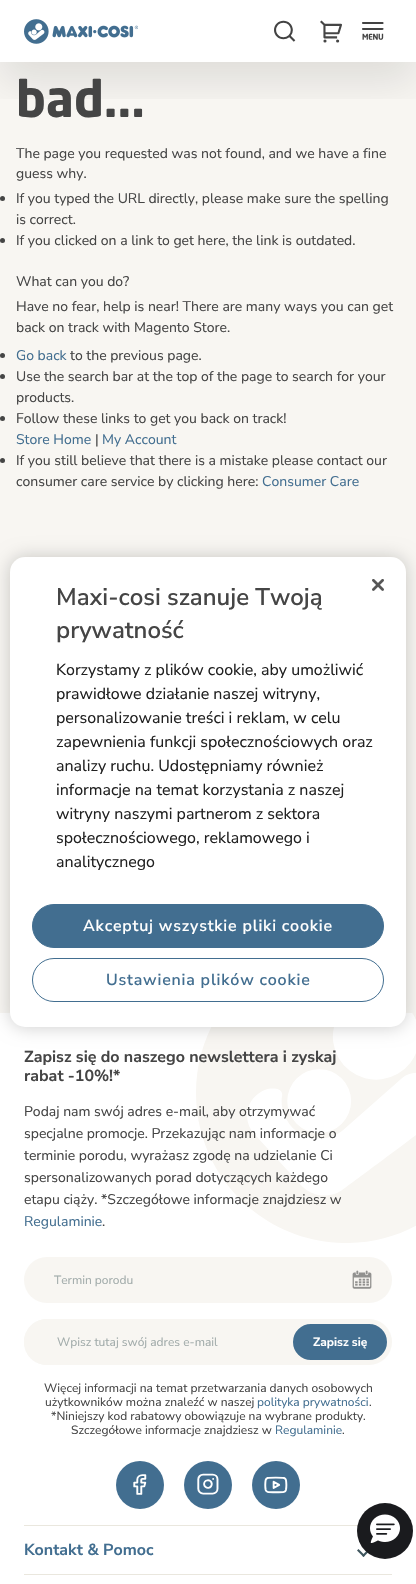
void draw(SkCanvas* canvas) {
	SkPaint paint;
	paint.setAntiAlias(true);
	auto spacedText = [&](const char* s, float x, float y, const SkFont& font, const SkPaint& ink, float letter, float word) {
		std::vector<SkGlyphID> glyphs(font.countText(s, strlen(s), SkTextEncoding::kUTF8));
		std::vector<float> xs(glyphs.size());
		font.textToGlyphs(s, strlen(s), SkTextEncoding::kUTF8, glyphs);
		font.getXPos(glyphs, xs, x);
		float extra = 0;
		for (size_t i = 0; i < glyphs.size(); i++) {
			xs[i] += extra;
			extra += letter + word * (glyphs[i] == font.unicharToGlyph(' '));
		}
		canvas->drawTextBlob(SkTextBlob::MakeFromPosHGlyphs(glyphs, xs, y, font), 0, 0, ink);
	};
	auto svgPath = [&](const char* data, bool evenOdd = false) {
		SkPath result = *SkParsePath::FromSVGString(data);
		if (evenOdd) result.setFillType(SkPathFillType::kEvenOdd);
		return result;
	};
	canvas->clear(0xfff8f6f2);
	paint.setColor(0xffffffff);
	canvas->drawRect(SkRect::MakeXYWH(0, 0, 416, 62), paint);
	canvas->save();
	canvas->clipRect(SkRect::MakeXYWH(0, 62, 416, 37));
	paint.setColor(0x1a000000);
	paint.setMaskFilter(SkMaskFilter::MakeBlur(kNormal_SkBlurStyle, 20));
	canvas->drawRect(SkRect::MakeXYWH(0, 20, 416, 62), paint);
	paint.setMaskFilter(nullptr);
	canvas->restore();
	canvas->drawImageRect(SkImages::DeferredFromEncodedData(SkData::MakeFromFileName("img1.png")), SkRect::MakeXYWH(24, 19, 114, 25), SkSamplingOptions());
	canvas->drawImageRect(SkImages::DeferredFromEncodedData(SkData::MakeFromFileName("img2.png")), SkRect::MakeXYWH(274, 20, 22, 22), SkSamplingOptions());
	canvas->drawImageRect(SkImages::DeferredFromEncodedData(SkData::MakeFromFileName("img3.png")), SkRect::MakeXYWH(320, 20, 22, 23), SkSamplingOptions());
	canvas->drawImageRect(SkImages::DeferredFromEncodedData(SkData::MakeFromFileName("img4.png")), SkRect::MakeXYWH(362, 22, 22, 18), SkSamplingOptions());
	SkFont f1(fontMgr->matchFamilyStyle("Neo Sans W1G", SkFontStyle::Bold()), 50);
	f1.setSubpixel(true);
	paint.setColor(0xff454545);
	canvas->drawString("bad...", 16, 117, f1, paint);
	SkFont f2(fontMgr->matchFamilyStyle("Nunito Sans", SkFontStyle::Normal()), 14);
	f2.setSubpixel(true);
	canvas->drawString("The page you requested was not found, and we have a fine", 16, 158, f2, paint);
	canvas->drawString("guess why.", 16, 178, f2, paint);
	canvas->drawCircle(2.5, 198.5, 2.5, paint);
	canvas->drawString("If you typed the URL directly, please make sure the spelling", 16, 203, f2, paint);
	canvas->drawString("is correct.", 16, 224, f2, paint);
	canvas->drawCircle(2.5, 240.5, 2.5, paint);
	canvas->drawString("If you clicked on a link to get here, the link is outdated.", 16, 245, f2, paint);
	canvas->drawString("What can you do?", 16, 286, f2, paint);
	canvas->drawString("Have no fear, help is near! There are many ways you can get", 16, 311, f2, paint);
	canvas->drawString("back on track with Magento Store.", 16, 332, f2, paint);
	canvas->drawCircle(2.5, 355.5, 2.5, paint);
	paint.setColor(0xff426e90);
	canvas->drawString("Go back", 16, 360, f2, paint);
	paint.setColor(0xff454545);
	canvas->drawString("to the previous page.", 70, 360, f2, paint);
	canvas->drawCircle(2.5, 376.5, 2.5, paint);
	canvas->drawString("Use the search bar at the top of the page to search for your", 16, 381, f2, paint);
	canvas->drawString("products.", 16, 402, f2, paint);
	canvas->drawCircle(2.5, 418.5, 2.5, paint);
	canvas->drawString("Follow these links to get you back on track!", 16, 423, f2, paint);
	paint.setColor(0xff426e90);
	canvas->drawString("Store Home", 16, 444, f2, paint);
	paint.setColor(0xff454545);
	canvas->drawString("|", 95, 444, f2, paint);
	paint.setColor(0xff426e90);
	canvas->drawString("My Account", 102, 444, f2, paint);
	paint.setColor(0xff454545);
	canvas->drawCircle(2.5, 460.5, 2.5, paint);
	canvas->drawString("If you still believe that there is a mistake please contact our", 16, 465, f2, paint);
	canvas->drawString("consumer care service by clicking here:", 16, 486, f2, paint);
	paint.setColor(0xff426e90);
	canvas->drawString("Consumer Care", 262, 486, f2, paint);
	paint.setColor(0xffffffff);
	canvas->drawRect(SkRect::MakeXYWH(0, 1013, 416, 571), paint);
	canvas->drawImageRect(SkImages::DeferredFromEncodedData(SkData::MakeFromFileName("img5.png")), SkRect::MakeXYWH(196, 1013, 220, 230), SkSamplingOptions());
	SkFont f3(fontMgr->matchFamilyStyle("Nunito Sans", SkFontStyle::Bold()), 16);
	f3.setSubpixel(true);
	paint.setColor(0xff454545);
	canvas->drawString("Zapisz się do naszego newslettera i zyskaj", 24, 1062, f3, paint);
	canvas->drawString("rabat -10%!*", 24, 1081, f3, paint);
	canvas->drawString("Podaj nam swój adres e-mail, aby otrzymywać", 24, 1116, f2, paint);
	canvas->drawString("specjalne promocje. Przekazując nam informacje o", 24, 1138, f2, paint);
	canvas->drawString("terminie porodu, wyrażasz zgodę na udzielanie Ci", 24, 1160, f2, paint);
	canvas->drawString("spersonalizowanych porad dotyczących każdego", 24, 1182, f2, paint);
	canvas->drawString("etapu ciąży. *Szczegółowe informacje znajdziesz w", 24, 1204, f2, paint);
	paint.setColor(0xff426e90);
	canvas->drawString("Regulaminie", 24, 1226, f2, paint);
	paint.setColor(0xff454545);
	canvas->drawString(".", 102, 1226, f2, paint);
	paint.setColor(0xfff8f6f2);
	canvas->drawRoundRect(SkRect::MakeXYWH(24, 1257, 368, 46), 23, 23, paint);
	SkFont f4(fontMgr->matchFamilyStyle("Nunito Sans", SkFontStyle::Normal()), 12);
	f4.setSubpixel(true);
	paint.setColor(0xffa2acab);
	canvas->drawString("Termin porodu", 54, 1284, f4, paint);
	canvas->drawImageRect(SkImages::DeferredFromEncodedData(SkData::MakeFromFileName("img6.png")), SkRect::MakeXYWH(352, 1270, 20, 19), SkSamplingOptions());
	paint.setColor(0xfff8f6f2);
	canvas->drawRoundRect(SkRect::MakeXYWH(24, 1319, 368, 46), 23, 23, paint);
	canvas->drawRoundRect(SkRect::MakeXYWH(24, 1319, 264, 46), 23, 23, paint);
	paint.setColor(0xffa2acab);
	canvas->drawString("Wpisz tutaj swój adres e-mail", 57, 1346, f4, paint);
	paint.setColor(0xff426e90);
	canvas->drawRoundRect(SkRect::MakeXYWH(294, 1325, 92, 34), 17, 17, paint);
	paint.setStroke(true);
	paint.setStrokeWidth(2);
	canvas->drawRoundRect(SkRect::MakeXYWH(294, 1325, 92, 34), 17, 17, paint);
	SkFont f5(fontMgr->matchFamilyStyle("Nunito Sans", SkFontStyle::Bold()), 12);
	f5.setSubpixel(true);
	paint.setStroke(false);
	paint.setColor(0xffffffff);
	canvas->drawString("Zapisz się", 313, 1346, f5, paint);
	paint.setColor(0xff454545);
	canvas->drawString("Więcej informacji na temat przetwarzania danych osobowych", 44, 1392, f4, paint);
	canvas->drawString("użytkowników można znaleźć w naszej", 45, 1406, f4, paint);
	paint.setColor(0xff426e90);
	canvas->drawString("polityka prywatności", 257, 1406, f4, paint);
	paint.setColor(0xff454545);
	canvas->drawString(".", 369, 1406, f4, paint);
	canvas->drawString("*Niniejszy kod rabatowy obowiązuje na wybrane produkty.", 51, 1420, f4, paint);
	canvas->drawString("Szczegółowe informacje znajdziesz w", 71, 1434, f4, paint);
	paint.setColor(0xff426e90);
	canvas->drawString("Regulaminie", 275, 1434, f4, paint);
	paint.setColor(0xff454545);
	canvas->drawString(".", 342, 1434, f4, paint);
	paint.setColor(0xff426e90);
	canvas->drawCircle(140, 1485, 24, paint);
	canvas->drawImageRect(SkImages::DeferredFromEncodedData(SkData::MakeFromFileName("img7.png")), SkRect::MakeXYWH(133, 1474, 14, 21), SkSamplingOptions());
	canvas->drawCircle(208, 1485, 24, paint);
	canvas->drawImageRect(SkImages::DeferredFromEncodedData(SkData::MakeFromFileName("img8.png")), SkRect::MakeXYWH(197, 1473, 22, 22), SkSamplingOptions());
	canvas->drawCircle(276, 1485, 24, paint);
	canvas->drawImageRect(SkImages::DeferredFromEncodedData(SkData::MakeFromFileName("img9.png")), SkRect::MakeXYWH(264, 1476, 24, 18), SkSamplingOptions());
	paint.setColor(0xffeae7de);
	canvas->drawRect(SkRect::MakeXYWH(24, 1525, 334, 1), paint);
	paint.setColor(0xff426e90);
	canvas->drawString("Kontakt & Pomoc", 24, 1555, f3, paint);
	paint.setColor(0xff3f565e);
	canvas->drawPath(svgPath("M368.5 1549L370 1550.5L363.5 1557L362 1555.5Z"), paint);
	canvas->drawPath(svgPath("M358.5 1549L365 1555.5L363.5 1557L357 1550.5Z"), paint);
	paint.setColor(0xffeae7de);
	canvas->drawRect(SkRect::MakeXYWH(24, 1574, 368, 1), paint);
	paint.setColor(0x33000000);
	paint.setMaskFilter(SkMaskFilter::MakeBlur(kNormal_SkBlurStyle, 9));
	canvas->drawRoundRect(SkRect::MakeXYWH(10, 557, 396, 470), 15, 15, paint);
	paint.setMaskFilter(nullptr);
	paint.setColor(0xffffffff);
	canvas->drawRoundRect(SkRect::MakeXYWH(10, 557, 396, 470), 15, 15, paint);
	canvas->drawImageRect(SkImages::DeferredFromEncodedData(SkData::MakeFromFileName("img10.png")), SkRect::MakeXYWH(372, 579, 12, 12), SkSamplingOptions());
	SkFont f6(fontMgr->matchFamilyStyle("Nunito Sans", SkFontStyle(600, SkFontStyle::kNormal_Width, SkFontStyle::kUpright_Slant)), 24);
	f6.setSubpixel(true);
	paint.setColor(0xff454545);
	canvas->drawString("Maxi-cosi szanuje Twoją", 56, 605, f6, paint);
	canvas->drawString("prywatność", 56, 638, f6, paint);
	SkFont f7(fontMgr->matchFamilyStyle("Nunito Sans", SkFontStyle::Normal()), 16);
	f7.setSubpixel(true);
	paint.setColor(0xff212121);
	canvas->drawString("Korzystamy z plików cookie, aby umożliwić", 56, 675, f7, paint);
	canvas->drawString("prawidłowe działanie naszej witryny,", 56, 699, f7, paint);
	canvas->drawString("personalizowanie treści i reklam, w celu", 56, 723, f7, paint);
	canvas->drawString("zapewnienia funkcji społecznościowych oraz", 56, 747, f7, paint);
	canvas->drawString("analizy ruchu. Udostępniamy również", 56, 771, f7, paint);
	canvas->drawString("informacje na temat korzystania z naszej", 56, 795, f7, paint);
	canvas->drawString("witryny naszymi partnerom z sektora", 56, 819, f7, paint);
	canvas->drawString("społecznościowego, reklamowego i", 56, 843, f7, paint);
	canvas->drawString("analitycznego", 56, 867, f7, paint);
	paint.setColor(0xff426e90);
	canvas->drawRoundRect(SkRect::MakeXYWH(32.5, 904.5, 351, 43), 21.5, 21.5, paint);
	paint.setStroke(true);
	paint.setStrokeWidth(1);
	canvas->drawRoundRect(SkRect::MakeXYWH(32.5, 904.5, 351, 43), 21.5, 21.5, paint);
	SkFont f8(fontMgr->matchFamilyStyle("Nunito Sans", SkFontStyle(600, SkFontStyle::kNormal_Width, SkFontStyle::kUpright_Slant)), 16);
	f8.setSubpixel(true);
	paint.setStroke(false);
	paint.setColor(0xffffffff);
	spacedText("Akceptuj wszystkie pliki cookie", 83, 931, f8, paint, 0.8, 0);
	paint.setStroke(true);
	paint.setColor(0xff426e90);
	canvas->drawRoundRect(SkRect::MakeXYWH(32.5, 958.5, 351, 43), 21.5, 21.5, paint);
	paint.setStroke(false);
	spacedText("Ustawienia plików cookie", 106, 985, f8, paint, 0.8, 0);
	paint.setColor(0xff1a1b1e);
	canvas->drawCircle(385, 1531, 28, paint);
	canvas->drawImageRect(SkImages::DeferredFromEncodedData(SkData::MakeFromFileName("img11.png")), SkRect::MakeXYWH(370, 1514, 30, 29), SkSamplingOptions());
}
